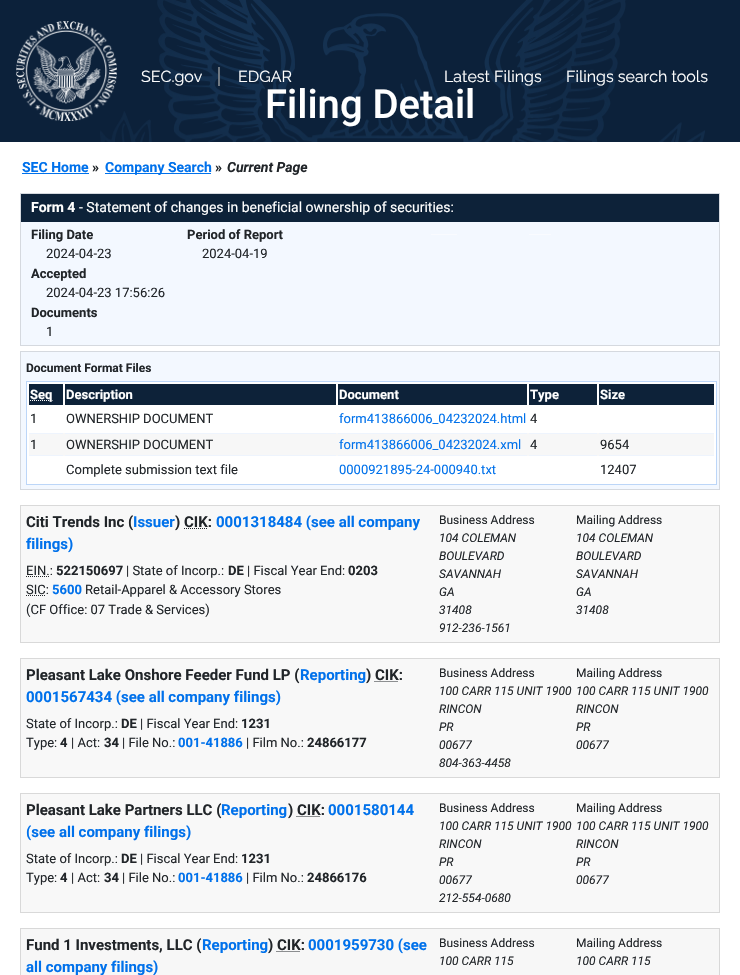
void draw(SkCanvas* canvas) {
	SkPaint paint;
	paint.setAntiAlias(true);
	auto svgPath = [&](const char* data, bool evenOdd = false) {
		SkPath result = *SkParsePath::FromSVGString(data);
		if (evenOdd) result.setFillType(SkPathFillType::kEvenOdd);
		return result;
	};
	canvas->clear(0xffffffff);
	paint.setColor(0xff0c213a);
	canvas->drawRect(SkRect::MakeXYWH(0, 0, 740, 142), paint);
	canvas->drawImageRect(SkImages::DeferredFromEncodedData(SkData::MakeFromFileName("img1.png")), SkRect::MakeXYWH(100, 0, 605, 142), SkSamplingOptions());
	canvas->drawImageRect(SkImages::DeferredFromEncodedData(SkData::MakeFromFileName("img2.png")), SkRect::MakeXYWH(16, 21, 101, 100), SkSamplingOptions());
	SkFont f1(fontMgr->matchFamilyStyle("Raleway", SkFontStyle::Normal()), 16);
	f1.setSubpixel(true);
	paint.setColor(0xffffffff);
	canvas->drawString("SEC.gov", 141, 82, f1, paint);
	paint.setColor(0xff707982);
	canvas->drawRect(SkRect::MakeXYWH(218, 67, 2, 19), paint);
	paint.setColor(0xffffffff);
	canvas->drawString("EDGAR", 238, 82, f1, paint);
	canvas->drawString("Latest Filings", 444, 82, f1, paint);
	canvas->drawString("Filings search tools", 566, 82, f1, paint);
	SkFont f2(fontMgr->matchFamilyStyle("Roboto", SkFontStyle(500, SkFontStyle::kNormal_Width, SkFontStyle::kUpright_Slant)), 40);
	f2.setSubpixel(true);
	canvas->drawString("Filing Detail", 265, 118, f2, paint);
	SkFont f3(fontMgr->matchFamilyStyle("Roboto", SkFontStyle::Bold()), 14);
	f3.setSubpixel(true);
	paint.setColor(0xff0071eb);
	canvas->drawString("SEC Home", 22, 172, f3, paint);
	canvas->drawRect(SkRect::MakeXYWH(22, 173, 67, 1), paint);
	paint.setColor(0xff212529);
	canvas->drawString("»", 92, 172, f3, paint);
	paint.setColor(0xff0071eb);
	canvas->drawRect(SkRect::MakeXYWH(105, 173, 106, 1), paint);
	canvas->drawString("Company Search", 105, 172, f3, paint);
	paint.setColor(0xff212529);
	canvas->drawString("»", 215, 172, f3, paint);
	SkFont f4(fontMgr->matchFamilyStyle("Roboto", SkFontStyle::BoldItalic()), 14);
	f4.setSubpixel(true);
	canvas->drawString("Current Page", 227, 172, f4, paint);
	paint.setColor(0xfff3f8ff);
	canvas->drawRect(SkRect::MakeXYWH(21, 222, 698, 123), paint);
	paint.setStroke(true);
	paint.setStrokeWidth(1);
	paint.setColor(0xffd5d9df);
	canvas->drawRect(SkRect::MakeXYWH(20.5, 193.5, 699, 152), paint);
	paint.setStroke(false);
	paint.setColor(0xff0d2239);
	canvas->drawRect(SkRect::MakeXYWH(21, 194, 698, 28), paint);
	paint.setColor(0xffffffff);
	canvas->drawString("Form 4", 31, 212, f3, paint);
	SkFont f5(fontMgr->matchFamilyStyle("Roboto", SkFontStyle::Normal()), 14);
	f5.setSubpixel(true);
	canvas->drawString("- Statement of changes in beneficial ownership of securities:", 79, 212, f5, paint);
	paint.setStroke(true);
	paint.setPathEffect(SkDashPathEffect::Make({{1, 1}}, 0));
	canvas->drawPath(svgPath("M431.5 234.5H457"), paint);
	paint.setPathEffect(nullptr);
	paint.setPathEffect(SkDashPathEffect::Make({{1, 1}}, 0));
	canvas->drawPath(svgPath("M529.5 234.5H551"), paint);
	paint.setPathEffect(nullptr);
	SkFont f6(fontMgr->matchFamilyStyle("Roboto", SkFontStyle::Bold()), 13);
	f6.setSubpixel(true);
	paint.setStroke(false);
	paint.setColor(0xff212529);
	canvas->drawString("Filing Date", 31, 239, f6, paint);
	SkFont f7(fontMgr->matchFamilyStyle("Roboto", SkFontStyle::Normal()), 13);
	f7.setSubpixel(true);
	canvas->drawString("2024-04-23", 46, 258, f7, paint);
	canvas->drawString("Accepted", 31, 278, f6, paint);
	canvas->drawString("2024-04-23 17:56:26", 46, 297, f7, paint);
	canvas->drawString("Documents", 31, 317, f6, paint);
	canvas->drawString("1", 46, 336, f7, paint);
	canvas->drawString("Period of Report", 187, 239, f6, paint);
	canvas->drawString("2024-04-19", 202, 258, f7, paint);
	paint.setColor(0xfff3f8ff);
	canvas->drawRect(SkRect::MakeXYWH(20.5, 351.5, 699, 138), paint);
	paint.setStroke(true);
	paint.setColor(0xffd5d9df);
	canvas->drawRect(SkRect::MakeXYWH(20.5, 351.5, 699, 138), paint);
	SkFont f8(fontMgr->matchFamilyStyle("Roboto", SkFontStyle::Bold()), 12);
	f8.setSubpixel(true);
	paint.setStroke(false);
	paint.setColor(0xff212529);
	canvas->drawString("Document Format Files", 26, 372, f8, paint);
	paint.setColor(0xffffffff);
	canvas->drawRect(SkRect::MakeXYWH(26.5, 381.5, 690, 103), paint);
	paint.setStroke(true);
	paint.setColor(0xffbcd6f8);
	canvas->drawRect(SkRect::MakeXYWH(26.5, 381.5, 690, 103), paint);
	paint.setStroke(false);
	paint.setColor(0xff0d2239);
	canvas->drawRect(SkRect::MakeXYWH(29, 384, 34, 21), paint);
	paint.setStroke(true);
	paint.setColor(0xffffffff);
	paint.setPathEffect(SkDashPathEffect::Make({{1, 1}}, 0));
	canvas->drawPath(svgPath("M30 400.5H52.5"), paint);
	paint.setPathEffect(nullptr);
	paint.setStroke(false);
	canvas->drawString("Seq", 30, 399, f6, paint);
	paint.setColor(0xff0d2239);
	canvas->drawRect(SkRect::MakeXYWH(65, 384, 271, 21), paint);
	paint.setColor(0xffffffff);
	canvas->drawString("Description", 66, 399, f6, paint);
	paint.setColor(0xff0d2239);
	canvas->drawRect(SkRect::MakeXYWH(338, 384, 189, 21), paint);
	paint.setColor(0xffffffff);
	canvas->drawString("Document", 339, 399, f6, paint);
	paint.setColor(0xff0d2239);
	canvas->drawRect(SkRect::MakeXYWH(529, 384, 68, 21), paint);
	paint.setColor(0xffffffff);
	canvas->drawString("Type", 530, 399, f6, paint);
	paint.setColor(0xff0d2239);
	canvas->drawRect(SkRect::MakeXYWH(599, 384, 115, 21), paint);
	paint.setColor(0xffffffff);
	canvas->drawString("Size", 600, 399, f6, paint);
	paint.setColor(0xff212529);
	canvas->drawString("1", 30, 423, f7, paint);
	canvas->drawString("OWNERSHIP DOCUMENT", 66, 423, f7, paint);
	paint.setColor(0xff0071eb);
	canvas->drawString("form413866006_04232024.html", 339, 423, f7, paint);
	paint.setColor(0xff212529);
	canvas->drawString("4", 530, 423, f7, paint);
	paint.setColor(0xfff7f7f7);
	canvas->drawRect(SkRect::MakeXYWH(29, 433, 685, 23), paint);
	paint.setColor(0xffeef4fd);
	canvas->drawRect(SkRect::MakeXYWH(29, 433, 34, 1), paint);
	canvas->drawRect(SkRect::MakeXYWH(29, 455, 34, 1), paint);
	paint.setColor(0xff212529);
	canvas->drawString("1", 30, 449, f7, paint);
	paint.setColor(0xffeef4fd);
	canvas->drawRect(SkRect::MakeXYWH(65, 433, 271, 1), paint);
	canvas->drawRect(SkRect::MakeXYWH(65, 455, 271, 1), paint);
	paint.setColor(0xff212529);
	canvas->drawString("OWNERSHIP DOCUMENT", 66, 449, f7, paint);
	paint.setColor(0xffeef4fd);
	canvas->drawRect(SkRect::MakeXYWH(338, 433, 189, 1), paint);
	canvas->drawRect(SkRect::MakeXYWH(338, 455, 189, 1), paint);
	paint.setColor(0xff0071eb);
	canvas->drawString("form413866006_04232024.xml", 339, 449, f7, paint);
	paint.setColor(0xffeef4fd);
	canvas->drawRect(SkRect::MakeXYWH(529, 433, 68, 1), paint);
	canvas->drawRect(SkRect::MakeXYWH(529, 455, 68, 1), paint);
	paint.setColor(0xff212529);
	canvas->drawString("4", 530, 449, f7, paint);
	paint.setColor(0xffeef4fd);
	canvas->drawRect(SkRect::MakeXYWH(599, 433, 115, 1), paint);
	canvas->drawRect(SkRect::MakeXYWH(599, 455, 115, 1), paint);
	paint.setColor(0xff212529);
	canvas->drawString("9654", 600, 449, f7, paint);
	canvas->drawString("Complete submission text file", 66, 474, f7, paint);
	paint.setColor(0xff0071eb);
	canvas->drawString("0000921895-24-000940.txt", 339, 474, f7, paint);
	paint.setColor(0xff212529);
	canvas->drawString("12407", 600, 474, f7, paint);
	paint.setColor(0xfff8f8f8);
	canvas->drawRect(SkRect::MakeXYWH(20.5, 505.5, 699, 137), paint);
	paint.setStroke(true);
	paint.setColor(0xffd9d9d9);
	canvas->drawRect(SkRect::MakeXYWH(20.5, 505.5, 699, 137), paint);
	SkFont f9(fontMgr->matchFamilyStyle("Roboto", SkFontStyle::Bold()), 15);
	f9.setSubpixel(true);
	paint.setStroke(false);
	paint.setColor(0xff212529);
	canvas->drawString("Citi Trends Inc (", 26, 527, f9, paint);
	paint.setColor(0xff0071eb);
	canvas->drawString("Issuer", 133, 527, f9, paint);
	paint.setColor(0xff212529);
	canvas->drawString(") CIK:", 175, 527, f9, paint);
	paint.setColor(0xff0071eb);
	canvas->drawString("0001318484 (see all company", 216, 527, f9, paint);
	paint.setStroke(true);
	paint.setColor(0xff212529);
	paint.setPathEffect(SkDashPathEffect::Make({{1, 1}}, 0));
	canvas->drawPath(svgPath("M184 528.5H208"), paint);
	paint.setPathEffect(nullptr);
	paint.setStroke(false);
	paint.setColor(0xff0071eb);
	canvas->drawString("filings)", 26, 549, f9, paint);
	paint.setColor(0xff212529);
	canvas->drawString("EIN.:", 26, 575, f7, paint);
	paint.setStroke(true);
	paint.setPathEffect(SkDashPathEffect::Make({{1, 1}}, 0));
	canvas->drawPath(svgPath("M26 576.5H49.5"), paint);
	paint.setPathEffect(nullptr);
	paint.setStroke(false);
	canvas->drawString("522150697", 56, 575, f6, paint);
	canvas->drawString("| State of Incorp.:", 126, 575, f7, paint);
	canvas->drawString("DE", 228, 575, f6, paint);
	canvas->drawString("| Fiscal Year End:", 247, 575, f7, paint);
	canvas->drawString("0203", 348, 575, f6, paint);
	canvas->drawString("SIC:", 26, 594, f7, paint);
	paint.setStroke(true);
	paint.setPathEffect(SkDashPathEffect::Make({{1, 1}}, 0));
	canvas->drawPath(svgPath("M26 595.5H45.5"), paint);
	paint.setPathEffect(nullptr);
	paint.setStroke(false);
	paint.setColor(0xff0071eb);
	canvas->drawString("5600", 52, 594, f6, paint);
	paint.setColor(0xff212529);
	canvas->drawString("Retail-Apparel & Accessory Stores", 85, 594, f7, paint);
	canvas->drawString("(CF Office: 07 Trade & Services)", 26, 614, f7, paint);
	SkFont f10(fontMgr->matchFamilyStyle("Roboto", SkFontStyle::Normal()), 12);
	f10.setSubpixel(true);
	canvas->drawString("Business Address", 439, 524, f10, paint);
	SkFont f11(fontMgr->matchFamilyStyle("Roboto", SkFontStyle::Italic()), 12);
	f11.setSubpixel(true);
	canvas->drawString("104 COLEMAN", 439, 542, f11, paint);
	canvas->drawString("BOULEVARD", 439, 560, f11, paint);
	canvas->drawString("SAVANNAH", 439, 578, f11, paint);
	canvas->drawString("GA", 439, 596, f11, paint);
	canvas->drawString("31408", 439, 614, f11, paint);
	canvas->drawString("912-236-1561", 439, 632, f11, paint);
	canvas->drawString("Mailing Address", 576, 524, f10, paint);
	canvas->drawString("104 COLEMAN", 576, 542, f11, paint);
	canvas->drawString("BOULEVARD", 576, 560, f11, paint);
	canvas->drawString("SAVANNAH", 576, 578, f11, paint);
	canvas->drawString("GA", 576, 596, f11, paint);
	canvas->drawString("31408", 576, 614, f11, paint);
	paint.setColor(0xfff8f8f8);
	canvas->drawRect(SkRect::MakeXYWH(20.5, 658.5, 699, 119), paint);
	paint.setStroke(true);
	paint.setColor(0xffd9d9d9);
	canvas->drawRect(SkRect::MakeXYWH(20.5, 658.5, 699, 119), paint);
	paint.setStroke(false);
	paint.setColor(0xff212529);
	canvas->drawString("Pleasant Lake Onshore Feeder Fund LP (", 26, 680, f9, paint);
	paint.setColor(0xff0071eb);
	canvas->drawString("Reporting", 300, 680, f9, paint);
	paint.setColor(0xff212529);
	canvas->drawString(") CIK:", 366, 680, f9, paint);
	paint.setStroke(true);
	paint.setPathEffect(SkDashPathEffect::Make({{1, 1}}, 0));
	canvas->drawPath(svgPath("M374.5 681.5H398.5"), paint);
	paint.setPathEffect(nullptr);
	paint.setStroke(false);
	paint.setColor(0xff0071eb);
	canvas->drawString("0001567434 (see all company filings)", 26, 702, f9, paint);
	paint.setColor(0xff212529);
	canvas->drawString("State of Incorp.:", 26, 728, f7, paint);
	canvas->drawString("DE", 121, 728, f6, paint);
	canvas->drawString("| Fiscal Year End:", 140, 728, f7, paint);
	canvas->drawString("1231", 241, 728, f6, paint);
	canvas->drawString("Type:", 26, 747, f7, paint);
	canvas->drawString("4", 60, 747, f6, paint);
	canvas->drawString("| Act:", 71, 747, f7, paint);
	canvas->drawString("34", 104, 747, f6, paint);
	canvas->drawString("| File No.:", 122, 747, f7, paint);
	paint.setColor(0xff0071eb);
	canvas->drawString("001-41886", 178, 747, f6, paint);
	paint.setColor(0xff212529);
	canvas->drawString("| Film No.:", 246, 747, f7, paint);
	canvas->drawString("24866177", 307, 747, f6, paint);
	canvas->drawString("Business Address", 439, 677, f10, paint);
	canvas->drawString("100 CARR 115 UNIT 1900", 439, 695, f11, paint);
	canvas->drawString("RINCON", 439, 713, f11, paint);
	canvas->drawString("PR", 439, 731, f11, paint);
	canvas->drawString("00677", 439, 749, f11, paint);
	canvas->drawString("804-363-4458", 439, 767, f11, paint);
	canvas->drawString("Mailing Address", 576, 677, f10, paint);
	canvas->drawString("100 CARR 115 UNIT 1900", 576, 695, f11, paint);
	canvas->drawString("RINCON", 576, 713, f11, paint);
	canvas->drawString("PR", 576, 731, f11, paint);
	canvas->drawString("00677", 576, 749, f11, paint);
	paint.setColor(0xfff8f8f8);
	canvas->drawRect(SkRect::MakeXYWH(20.5, 793.5, 699, 119), paint);
	paint.setStroke(true);
	paint.setColor(0xffd9d9d9);
	canvas->drawRect(SkRect::MakeXYWH(20.5, 793.5, 699, 119), paint);
	paint.setStroke(false);
	paint.setColor(0xff212529);
	canvas->drawString("Pleasant Lake Partners LLC (", 26, 815, f9, paint);
	paint.setColor(0xff0071eb);
	canvas->drawString("Reporting", 221, 815, f9, paint);
	paint.setColor(0xff212529);
	canvas->drawString(") CIK:", 288, 815, f9, paint);
	paint.setColor(0xff0071eb);
	canvas->drawString("0001580144", 328, 815, f9, paint);
	paint.setStroke(true);
	paint.setColor(0xff212529);
	paint.setPathEffect(SkDashPathEffect::Make({{1, 1}}, 0));
	canvas->drawPath(svgPath("M296.5 816.5H320.5"), paint);
	paint.setPathEffect(nullptr);
	paint.setStroke(false);
	paint.setColor(0xff0071eb);
	canvas->drawString("(see all company filings)", 26, 837, f9, paint);
	paint.setColor(0xff212529);
	canvas->drawString("State of Incorp.:", 26, 863, f7, paint);
	canvas->drawString("DE", 121, 863, f6, paint);
	canvas->drawString("| Fiscal Year End:", 140, 863, f7, paint);
	canvas->drawString("1231", 241, 863, f6, paint);
	canvas->drawString("Type:", 26, 882, f7, paint);
	canvas->drawString("4", 60, 882, f6, paint);
	canvas->drawString("| Act:", 71, 882, f7, paint);
	canvas->drawString("34", 104, 882, f6, paint);
	canvas->drawString("| File No.:", 122, 882, f7, paint);
	paint.setColor(0xff0071eb);
	canvas->drawString("001-41886", 178, 882, f6, paint);
	paint.setColor(0xff212529);
	canvas->drawString("| Film No.:", 246, 882, f7, paint);
	canvas->drawString("24866176", 307, 882, f6, paint);
	canvas->drawString("Business Address", 439, 812, f10, paint);
	canvas->drawString("100 CARR 115 UNIT 1900", 439, 830, f11, paint);
	canvas->drawString("RINCON", 439, 848, f11, paint);
	canvas->drawString("PR", 439, 866, f11, paint);
	canvas->drawString("00677", 439, 884, f11, paint);
	canvas->drawString("212-554-0680", 439, 902, f11, paint);
	canvas->drawString("Mailing Address", 576, 812, f10, paint);
	canvas->drawString("100 CARR 115 UNIT 1900", 576, 830, f11, paint);
	canvas->drawString("RINCON", 576, 848, f11, paint);
	canvas->drawString("PR", 576, 866, f11, paint);
	canvas->drawString("00677", 576, 884, f11, paint);
	paint.setColor(0xfff7f7f7);
	canvas->drawRect(SkRect::MakeXYWH(20.5, 928.5, 699, 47), paint);
	paint.setStroke(true);
	paint.setColor(0xffd8d8d8);
	canvas->drawRect(SkRect::MakeXYWH(20.5, 928.5, 699, 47), paint);
	paint.setStroke(false);
	paint.setColor(0xff212529);
	canvas->drawString("Fund 1 Investments, LLC (", 26, 950, f9, paint);
	paint.setColor(0xff0071eb);
	canvas->drawString("Reporting", 202, 950, f9, paint);
	paint.setColor(0xff212529);
	canvas->drawString(") CIK:", 268, 950, f9, paint);
	paint.setColor(0xff0071eb);
	canvas->drawString("0001959730 (see", 308, 950, f9, paint);
	paint.setStroke(true);
	paint.setColor(0xff212529);
	paint.setPathEffect(SkDashPathEffect::Make({{1, 1}}, 0));
	canvas->drawPath(svgPath("M276.5 951.5H300.5"), paint);
	paint.setPathEffect(nullptr);
	paint.setStroke(false);
	paint.setColor(0xff0071eb);
	canvas->drawString("all company filings)", 26, 972, f9, paint);
	paint.setColor(0xff212529);
	canvas->drawString("Business Address", 439, 947, f10, paint);
	canvas->drawString("100 CARR 115", 439, 965, f11, paint);
	canvas->drawString("Mailing Address", 576, 947, f10, paint);
	canvas->drawString("100 CARR 115", 576, 965, f11, paint);
}
